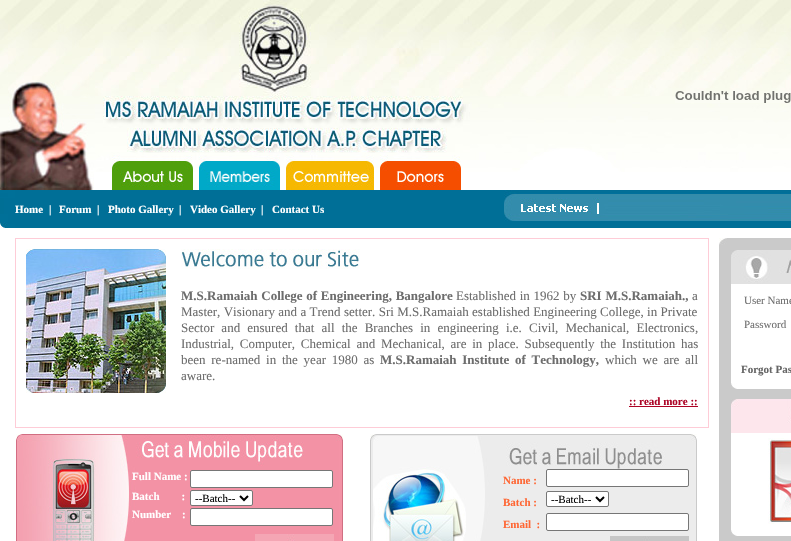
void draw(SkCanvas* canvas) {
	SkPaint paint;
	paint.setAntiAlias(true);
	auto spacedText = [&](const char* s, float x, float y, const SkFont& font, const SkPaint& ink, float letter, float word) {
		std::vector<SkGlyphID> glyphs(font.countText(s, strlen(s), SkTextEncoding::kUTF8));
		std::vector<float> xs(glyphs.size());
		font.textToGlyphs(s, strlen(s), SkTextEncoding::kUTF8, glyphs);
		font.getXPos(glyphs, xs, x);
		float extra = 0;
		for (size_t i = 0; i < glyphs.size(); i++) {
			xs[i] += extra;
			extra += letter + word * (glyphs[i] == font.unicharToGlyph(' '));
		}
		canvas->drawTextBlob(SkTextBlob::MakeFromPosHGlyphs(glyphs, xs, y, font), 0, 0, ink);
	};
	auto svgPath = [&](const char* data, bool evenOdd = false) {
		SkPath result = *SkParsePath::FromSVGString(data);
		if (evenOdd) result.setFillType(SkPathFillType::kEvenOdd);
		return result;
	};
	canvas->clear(0xffffffff);
	canvas->drawImageRect(SkImages::DeferredFromEncodedData(SkData::MakeFromFileName("img1.png")), SkRect::MakeXYWH(0, 0, 791, 172), SkSamplingOptions());
	canvas->drawImageRect(SkImages::DeferredFromEncodedData(SkData::MakeFromFileName("img2.png")), SkRect::MakeXYWH(0, 82, 94, 108), SkSamplingOptions());
	canvas->drawImageRect(SkImages::DeferredFromEncodedData(SkData::MakeFromFileName("img3.png")), SkRect::MakeXYWH(95, 0, 375, 153), SkSamplingOptions());
	canvas->drawImageRect(SkImages::DeferredFromEncodedData(SkData::MakeFromFileName("img4.png")), SkRect::MakeXYWH(112, 155, 81, 35), SkSamplingOptions());
	canvas->drawImageRect(SkImages::DeferredFromEncodedData(SkData::MakeFromFileName("img5.png")), SkRect::MakeXYWH(199, 155, 81, 35), SkSamplingOptions());
	canvas->drawImageRect(SkImages::DeferredFromEncodedData(SkData::MakeFromFileName("img6.png")), SkRect::MakeXYWH(286, 155, 88, 35), SkSamplingOptions());
	canvas->drawImageRect(SkImages::DeferredFromEncodedData(SkData::MakeFromFileName("img7.png")), SkRect::MakeXYWH(380, 155, 81, 35), SkSamplingOptions());
	canvas->drawImageRect(SkImages::DeferredFromEncodedData(SkData::MakeFromFileName("img8.png")), SkRect::MakeXYWH(675, 91, 116, 12), SkSamplingOptions());
	canvas->drawImageRect(SkImages::DeferredFromEncodedData(SkData::MakeFromFileName("img9.png")), SkRect::MakeXYWH(0, 190, 15, 38), SkSamplingOptions());
	paint.setColor(0xff006f97);
	canvas->drawRect(SkRect::MakeXYWH(15, 190, 776, 38), paint);
	SkFont f1(fontMgr->matchFamilyStyle("Liberation Serif", SkFontStyle::Bold()), 11);
	f1.setSubpixel(true);
	paint.setColor(0xffffffff);
	canvas->drawString("Home", 15, 213, f1, paint);
	canvas->drawString("|", 49, 213, f1, paint);
	canvas->drawString("Forum", 59, 213, f1, paint);
	canvas->drawString("|", 97, 213, f1, paint);
	canvas->drawString("Photo Gallery", 108, 213, f1, paint);
	canvas->drawString("|", 179, 213, f1, paint);
	canvas->drawString("Video Gallery", 190, 213, f1, paint);
	canvas->drawString("|", 261, 213, f1, paint);
	canvas->drawString("Contact Us", 272, 213, f1, paint);
	canvas->drawImageRect(SkImages::DeferredFromEncodedData(SkData::MakeFromFileName("img10.png")), SkRect::MakeXYWH(504, 190, 287, 31), SkSamplingOptions());
	paint.setColor(0xfffeccd7);
	canvas->drawRect(SkRect::MakeXYWH(15, 238, 694, 190), paint);
	paint.setColor(0xffffffff);
	canvas->drawRect(SkRect::MakeXYWH(16, 239, 692, 188), paint);
	canvas->drawImageRect(SkImages::DeferredFromEncodedData(SkData::MakeFromFileName("img11.png")), SkRect::MakeXYWH(26, 249, 140, 144), SkSamplingOptions());
	canvas->drawImageRect(SkImages::DeferredFromEncodedData(SkData::MakeFromFileName("img12.png")), SkRect::MakeXYWH(181, 249, 179, 20), SkSamplingOptions());
	SkFont f2(fontMgr->matchFamilyStyle("Liberation Serif", SkFontStyle::Bold()), 13);
	f2.setSubpixel(true);
	paint.setColor(0xff6d6d6d);
	spacedText("M.S.Ramaiah College of Engineering, Bangalore", 181, 300, f2, paint, 0, 0.5);
	SkFont f3(fontMgr->matchFamilyStyle("Liberation Serif", SkFontStyle::Normal()), 13);
	f3.setSubpixel(true);
	spacedText("Established in 1962 by", 456, 300, f3, paint, 0, 0.5);
	spacedText("SRI M.S.Ramaiah.,", 580, 300, f2, paint, 0, 0.5);
	canvas->drawString("a", 692, 300, f3, paint);
	spacedText("Master, Visionary and a Trend setter. Sri M.S.Ramaiah established Engineering College, in Private", 181, 316, f3, paint, 0, 0.1);
	spacedText("Sector and ensured that all the Branches in engineering i.e. Civil, Mechanical, Electronics,", 181, 332, f3, paint, 0, 3.9);
	spacedText("Industrial, Computer, Chemical and Mechanical, are in place. Subsequently the Institution has", 181, 348, f3, paint, 0, 2.5);
	spacedText("been re-named in the year 1980 as", 181, 364, f3, paint, 0, 2.5);
	spacedText("M.S.Ramaiah Institute of Technology,", 380, 364, f2, paint, 0, 2.5);
	spacedText("which we are all", 605, 364, f3, paint, 0, 2.5);
	canvas->drawString("aware.", 181, 380, f3, paint);
	paint.setColor(0xffac0325);
	canvas->drawString(":: read more ::", 629, 405, f1, paint);
	canvas->drawRect(SkRect::MakeXYWH(629, 406, 69, 1), paint);
	canvas->drawImageRect(SkImages::DeferredFromEncodedData(SkData::MakeFromFileName("img13.png")), SkRect::MakeXYWH(16, 434, 327, 107), SkSamplingOptions());
	paint.setColor(0xffffffff);
	canvas->drawString("Full Name :", 132, 480, f1, paint);
	canvas->drawRoundRect(SkRect::MakeXYWH(190.5, 470.5, 142, 17), 1.5, 1.5, paint);
	paint.setStroke(true);
	paint.setStrokeWidth(1);
	paint.setColor(0xff767676);
	canvas->drawRoundRect(SkRect::MakeXYWH(190.5, 470.5, 142, 17), 1.5, 1.5, paint);
	paint.setStroke(false);
	paint.setColor(0xffffffff);
	canvas->drawString("Batch        :", 132, 500, f1, paint);
	canvas->drawRoundRect(SkRect::MakeXYWH(190.5, 490.5, 62, 15), 1.5, 1.5, paint);
	paint.setStroke(true);
	paint.setColor(0xff767676);
	canvas->drawRoundRect(SkRect::MakeXYWH(190.5, 490.5, 62, 15), 1.5, 1.5, paint);
	paint.setStrokeWidth(2);
	paint.setColor(0xff000000);
	canvas->drawPath(svgPath("M240 496L244 500L248 496"), paint);
	SkFont f4(fontMgr->matchFamilyStyle("Liberation Serif", SkFontStyle::Normal()), 11);
	f4.setSubpixel(true);
	paint.setStroke(false);
	canvas->drawString("--Batch--", 195, 502, f4, paint);
	paint.setColor(0xffffffff);
	canvas->drawString("Number    :", 132, 518, f1, paint);
	canvas->drawRoundRect(SkRect::MakeXYWH(190.5, 508.5, 142, 17), 1.5, 1.5, paint);
	paint.setStroke(true);
	paint.setStrokeWidth(1);
	paint.setColor(0xff767676);
	canvas->drawRoundRect(SkRect::MakeXYWH(190.5, 508.5, 142, 17), 1.5, 1.5, paint);
	canvas->drawImageRect(SkImages::DeferredFromEncodedData(SkData::MakeFromFileName("img14.png")), SkRect::MakeXYWH(255, 534, 79, 7), SkSamplingOptions());
	canvas->drawImageRect(SkImages::DeferredFromEncodedData(SkData::MakeFromFileName("img15.png")), SkRect::MakeXYWH(370, 434, 327, 107), SkSamplingOptions());
	paint.setStroke(false);
	paint.setColor(0xffff6633);
	canvas->drawString("Name :", 503, 484, f1, paint);
	paint.setColor(0xffffffff);
	canvas->drawRoundRect(SkRect::MakeXYWH(546.5, 469.5, 142, 17), 1.5, 1.5, paint);
	paint.setStroke(true);
	paint.setColor(0xff767676);
	canvas->drawRoundRect(SkRect::MakeXYWH(546.5, 469.5, 142, 17), 1.5, 1.5, paint);
	paint.setStroke(false);
	paint.setColor(0xffff6633);
	canvas->drawString("Batch :", 503, 506, f1, paint);
	paint.setColor(0xffffffff);
	canvas->drawRoundRect(SkRect::MakeXYWH(546.5, 491.5, 62, 15), 1.5, 1.5, paint);
	paint.setStroke(true);
	paint.setColor(0xff767676);
	canvas->drawRoundRect(SkRect::MakeXYWH(546.5, 491.5, 62, 15), 1.5, 1.5, paint);
	paint.setStrokeWidth(2);
	paint.setColor(0xff000000);
	canvas->drawPath(svgPath("M596 497L600 501L604 497"), paint);
	paint.setStroke(false);
	canvas->drawString("--Batch--", 551, 503, f4, paint);
	paint.setColor(0xffff6633);
	canvas->drawString("Email  :", 503, 528, f1, paint);
	paint.setColor(0xffffffff);
	canvas->drawRoundRect(SkRect::MakeXYWH(546.5, 513.5, 142, 17), 1.5, 1.5, paint);
	paint.setStroke(true);
	paint.setStrokeWidth(1);
	paint.setColor(0xff767676);
	canvas->drawRoundRect(SkRect::MakeXYWH(546.5, 513.5, 142, 17), 1.5, 1.5, paint);
	canvas->drawImageRect(SkImages::DeferredFromEncodedData(SkData::MakeFromFileName("img16.png")), SkRect::MakeXYWH(610, 536, 79, 5), SkSamplingOptions());
	paint.setStroke(false);
	paint.setColor(0xffcacaca);
	canvas->drawRect(SkRect::MakeXYWH(719, 238, 72, 12), paint);
	canvas->drawImageRect(SkImages::DeferredFromEncodedData(SkData::MakeFromFileName("img17.png")), SkRect::MakeXYWH(719, 238, 8, 7), SkSamplingOptions());
	canvas->drawRect(SkRect::MakeXYWH(719, 250, 72, 286), paint);
	paint.setColor(0xffffffff);
	canvas->drawRect(SkRect::MakeXYWH(731, 284, 60, 105), paint);
	canvas->drawImageRect(SkImages::DeferredFromEncodedData(SkData::MakeFromFileName("img18.png")), SkRect::MakeXYWH(731, 250, 60, 34), SkSamplingOptions());
	paint.setColor(0xff6d6d6d);
	canvas->drawString("User Name", 744, 304, f4, paint);
	canvas->drawString("Password", 744, 328, f4, paint);
	paint.setColor(0xff666666);
	canvas->drawString("Forgot Pas", 741, 373, f1, paint);
	canvas->drawImageRect(SkImages::DeferredFromEncodedData(SkData::MakeFromFileName("img19.png")), SkRect::MakeXYWH(731, 383, 6, 6), SkSamplingOptions());
	canvas->drawImageRect(SkImages::DeferredFromEncodedData(SkData::MakeFromFileName("img20.png")), SkRect::MakeXYWH(731, 399, 60, 34), SkSamplingOptions());
	paint.setColor(0xffffffff);
	canvas->drawRect(SkRect::MakeXYWH(731, 433, 60, 91), paint);
	canvas->drawImageRect(SkImages::DeferredFromEncodedData(SkData::MakeFromFileName("img21.png")), SkRect::MakeXYWH(768, 438, 23, 86), SkSamplingOptions());
	canvas->drawRect(SkRect::MakeXYWH(731, 524, 60, 12), paint);
	canvas->drawImageRect(SkImages::DeferredFromEncodedData(SkData::MakeFromFileName("img19.png")), SkRect::MakeXYWH(731, 530, 6, 6), SkSamplingOptions());
	paint.setColor(0xffcacaca);
	canvas->drawRect(SkRect::MakeXYWH(719, 536, 72, 5), paint);
}
